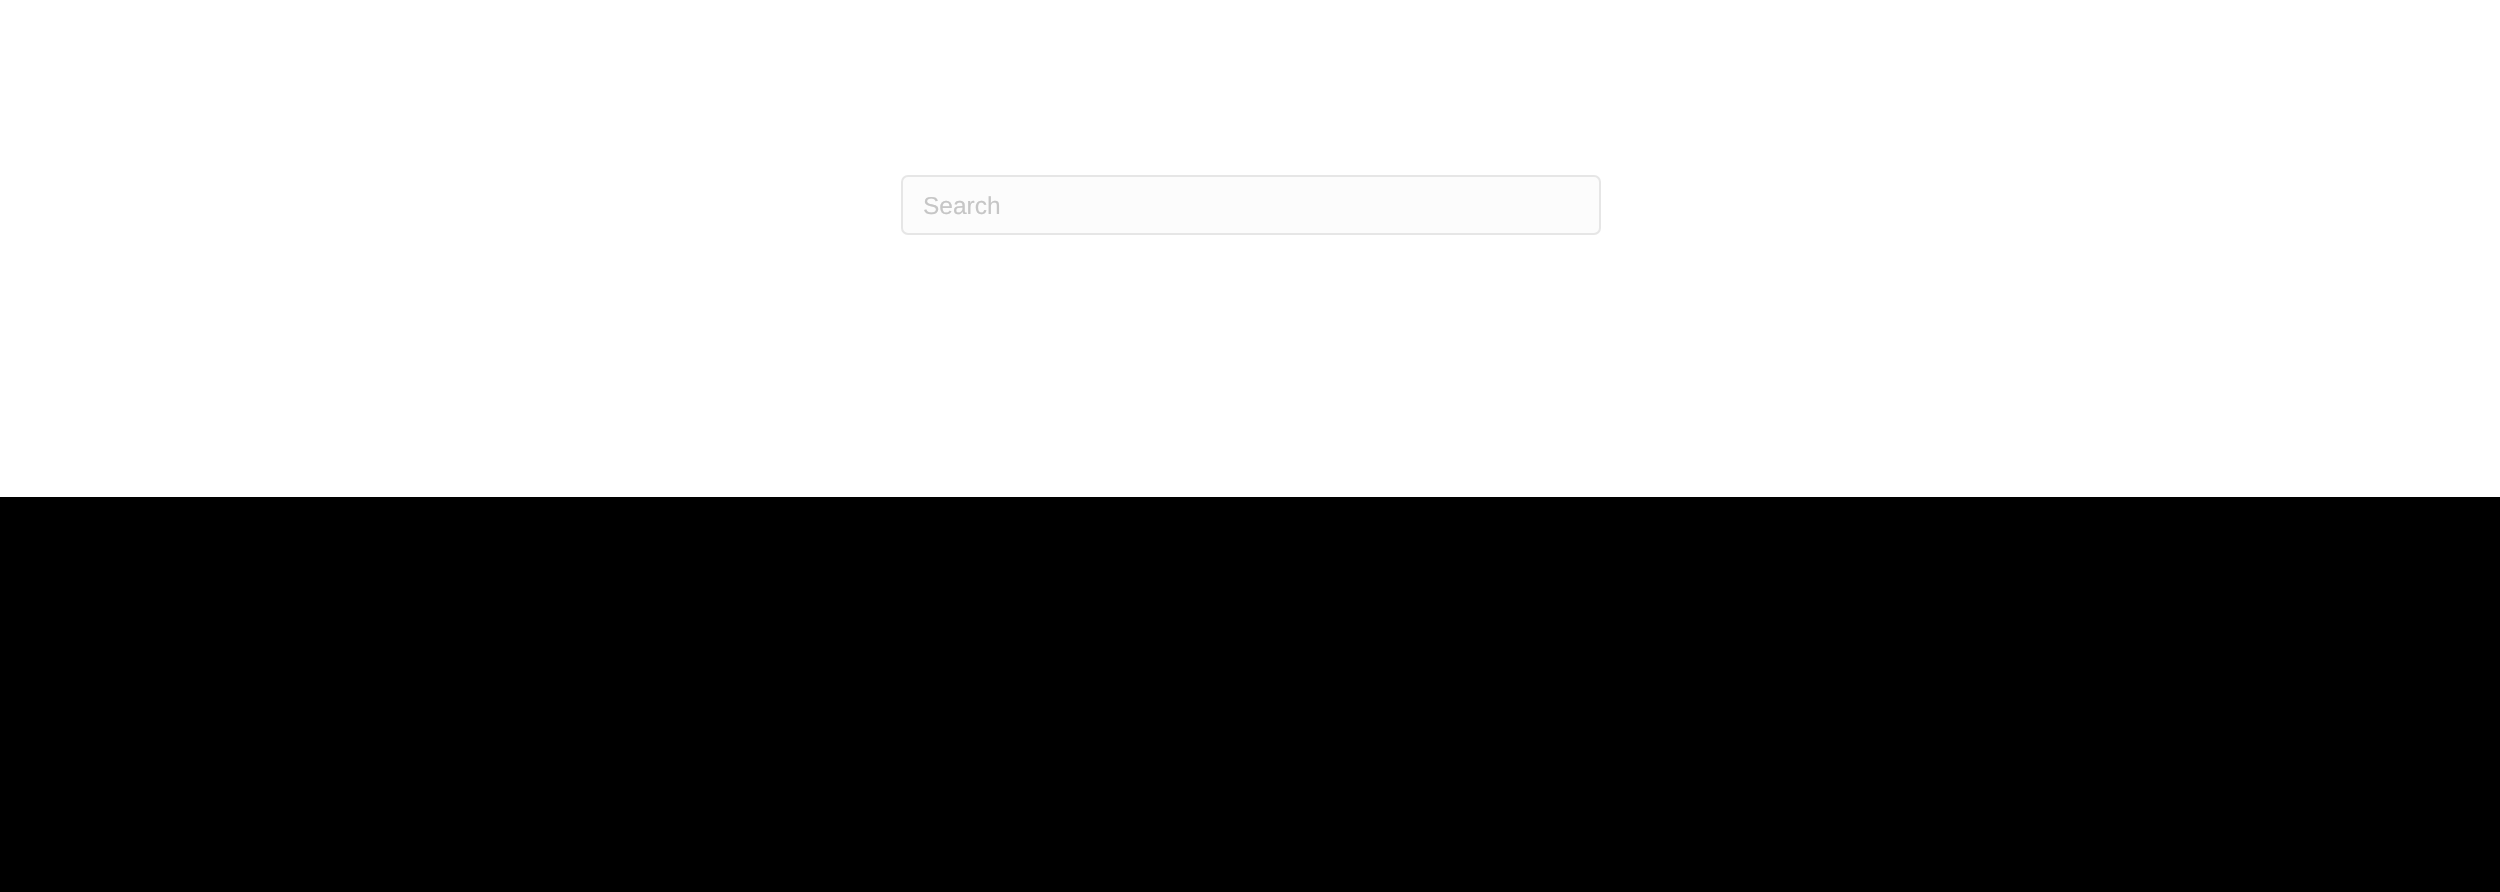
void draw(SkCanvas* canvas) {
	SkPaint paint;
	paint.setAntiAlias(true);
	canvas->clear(0xffffffff);
	paint.setColor(0xfffcfcfc);
	canvas->drawRoundRect(SkRect::MakeXYWH(902, 176, 698, 58), 6, 6, paint);
	paint.setStroke(true);
	paint.setStrokeWidth(2);
	paint.setColor(0xffe6e6e6);
	canvas->drawRoundRect(SkRect::MakeXYWH(902, 176, 698, 58), 6, 6, paint);
	SkFont f1(fontMgr->matchFamilyStyle("Liberation Sans", SkFontStyle::Normal()), 24.5);
	f1.setSubpixel(true);
	paint.setStroke(false);
	paint.setColor(0xffc6c6c6);
	canvas->drawString("Search", 923, 214, f1, paint);
	paint.setColor(0xff000000);
	canvas->drawRect(SkRect::MakeXYWH(0, 497, 2500, 395), paint);
}
